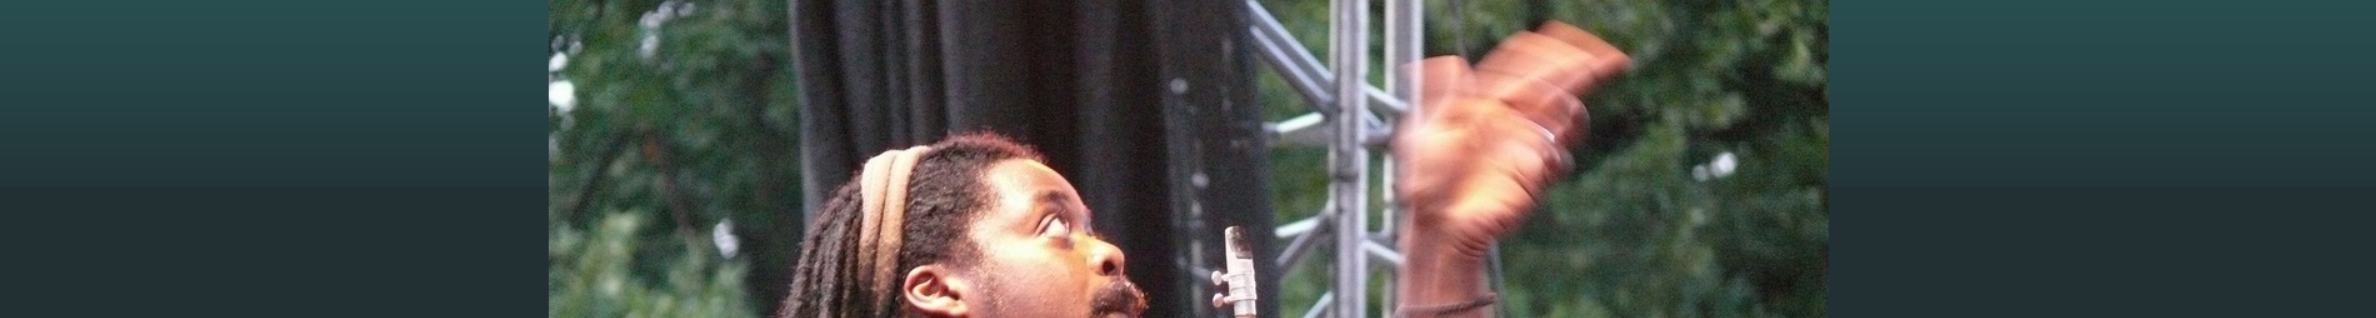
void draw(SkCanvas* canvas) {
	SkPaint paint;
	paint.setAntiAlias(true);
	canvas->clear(0xff223034);
	canvas->drawImageRect(SkImages::DeferredFromEncodedData(SkData::MakeFromFileName("img1.png")), SkRect::MakeXYWH(0, 0, 2376, 187), SkSamplingOptions());
	canvas->drawImageRect(SkImages::DeferredFromEncodedData(SkData::MakeFromFileName("img2.png")), SkRect::MakeXYWH(548, 0, 1281, 318), SkSamplingOptions());
}
